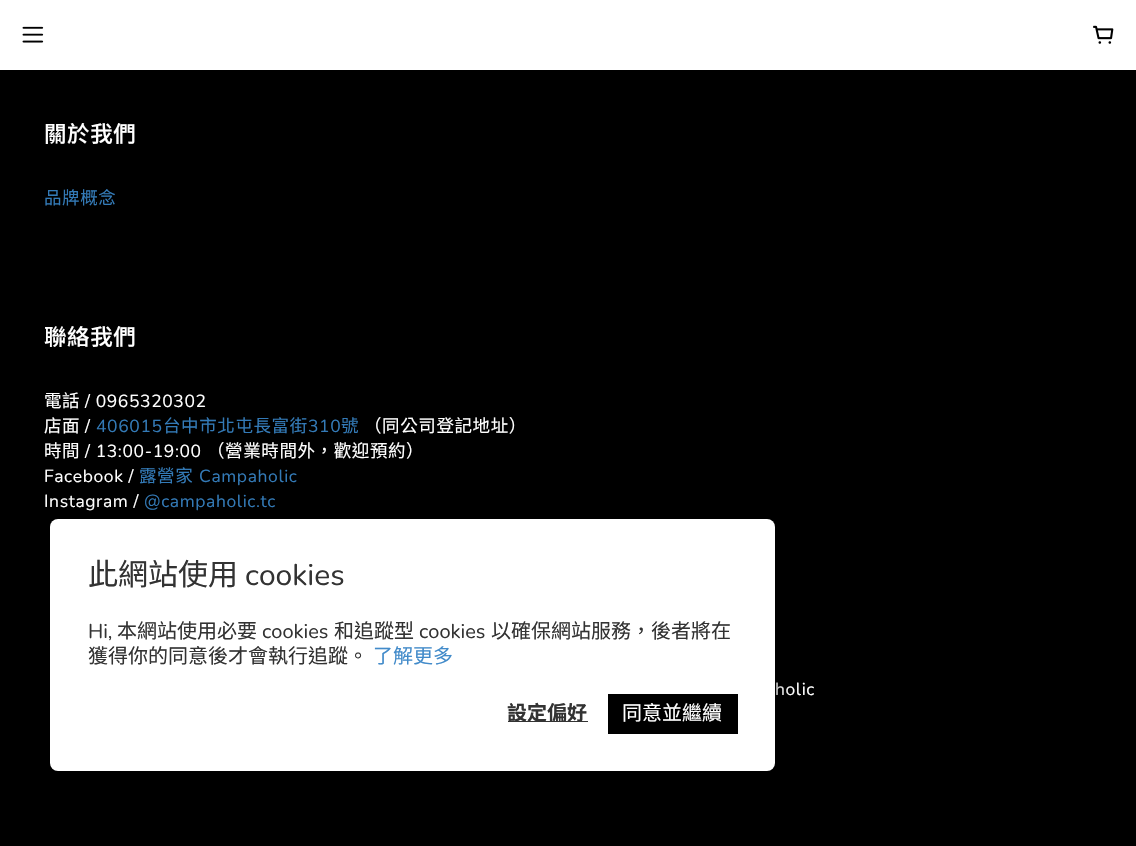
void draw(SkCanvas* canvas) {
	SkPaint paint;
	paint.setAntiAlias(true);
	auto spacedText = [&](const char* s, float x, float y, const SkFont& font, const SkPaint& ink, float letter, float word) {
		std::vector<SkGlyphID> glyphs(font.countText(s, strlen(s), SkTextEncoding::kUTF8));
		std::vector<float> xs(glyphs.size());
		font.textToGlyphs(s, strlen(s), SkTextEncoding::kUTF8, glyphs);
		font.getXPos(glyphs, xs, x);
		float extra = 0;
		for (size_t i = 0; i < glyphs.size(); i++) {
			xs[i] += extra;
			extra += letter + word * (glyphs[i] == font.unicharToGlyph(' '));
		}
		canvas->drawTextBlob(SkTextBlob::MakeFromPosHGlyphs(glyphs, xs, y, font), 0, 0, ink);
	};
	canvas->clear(0xff000000);
	paint.setColor(0xffffffff);
	canvas->drawRect(SkRect::MakeXYWH(0, 0, 1136, 70), paint);
	canvas->drawImageRect(SkImages::DeferredFromEncodedData(SkData::MakeFromFileName("img1.png")), SkRect::MakeXYWH(22, 26, 22, 17), SkSamplingOptions());
	canvas->drawImageRect(SkImages::DeferredFromEncodedData(SkData::MakeFromFileName("img2.png")), SkRect::MakeXYWH(1093, 25, 21, 19), SkSamplingOptions());
	SkFont f1(fontMgr->matchFamilyStyle("Noto Sans TC", SkFontStyle(500, SkFontStyle::kNormal_Width, SkFontStyle::kUpright_Slant)), 22.5);
	f1.setSubpixel(true);
	spacedText("關於我們", 44, 142, f1, paint, 0.6, 0);
	SkFont f2(fontMgr->matchFamilyStyle("Noto Sans TC", SkFontStyle::Normal()), 17.5);
	f2.setSubpixel(true);
	paint.setColor(0xff337ab7);
	spacedText("品牌概念", 44, 204, f2, paint, 0.6, 0);
	paint.setColor(0xffffffff);
	spacedText("聯絡我們", 44, 345, f1, paint, 0.6, 0);
	spacedText("電話", 44, 407, f2, paint, 0.6, 0);
	SkFont f3(fontMgr->matchFamilyStyle("Nunito", SkFontStyle::Normal()), 17.5);
	f3.setSubpixel(true);
	spacedText("/ 0965320302", 85, 407, f3, paint, 0.6, 0);
	spacedText("店面", 44, 432, f2, paint, 0.6, 0);
	spacedText("/", 85, 432, f3, paint, 0.6, 0);
	paint.setColor(0xff337ab7);
	spacedText("406015", 96, 432, f3, paint, 0.6, 0);
	spacedText("台中市北屯長富街", 163, 432, f2, paint, 0.6, 0);
	spacedText("310", 308, 432, f3, paint, 0.6, 0);
	spacedText("號", 341, 432, f2, paint, 0.6, 0);
	paint.setColor(0xffffffff);
	spacedText("（同公司登記地址）", 364, 432, f2, paint, 0.6, 0);
	spacedText("時間", 44, 457, f2, paint, 0.6, 0);
	spacedText("/ 13:00-19:00", 85, 457, f3, paint, 0.6, 0);
	spacedText("（營業時間外，歡迎預約）", 207, 457, f2, paint, 0.6, 0);
	spacedText("Facebook /", 44, 482, f3, paint, 0.6, 0);
	paint.setColor(0xff337ab7);
	spacedText("露營家", 139, 482, f2, paint, 0.6, 0);
	spacedText("Campaholic", 199, 482, f3, paint, 0.6, 0);
	paint.setColor(0xffffffff);
	spacedText("Instagram /", 44, 507, f3, paint, 0.6, 0);
	paint.setColor(0xff337ab7);
	spacedText("@campaholic.tc", 144, 507, f3, paint, 0.6, 0);
	paint.setColor(0xffffffff);
	spacedText("holic", 775, 695, f3, paint, 0.6, 0);
	paint.setColor(0x80000000);
	paint.setMaskFilter(SkMaskFilter::MakeBlur(kNormal_SkBlurStyle, 9.5));
	canvas->drawRoundRect(SkRect::MakeXYWH(50, 525, 725, 253), 8, 8, paint);
	paint.setMaskFilter(nullptr);
	paint.setColor(0xffffffff);
	canvas->drawRoundRect(SkRect::MakeXYWH(50, 519, 725, 252), 8, 8, paint);
	SkFont f4(fontMgr->matchFamilyStyle("Noto Sans TC", SkFontStyle::Normal()), 30);
	f4.setSubpixel(true);
	paint.setColor(0xff333333);
	canvas->drawString("此網站使用", 88, 585, f4, paint);
	SkFont f5(fontMgr->matchFamilyStyle("Nunito", SkFontStyle::Normal()), 30);
	f5.setSubpixel(true);
	canvas->drawString("cookies", 245, 585, f5, paint);
	SkFont f6(fontMgr->matchFamilyStyle("Nunito", SkFontStyle::Normal()), 20);
	f6.setSubpixel(true);
	canvas->drawString("Hi,", 88, 638, f6, paint);
	SkFont f7(fontMgr->matchFamilyStyle("Noto Sans TC", SkFontStyle::Normal()), 20);
	f7.setSubpixel(true);
	canvas->drawString("本網站使用必要", 117, 638, f7, paint);
	canvas->drawString("cookies", 262, 638, f6, paint);
	canvas->drawString("和追蹤型", 334, 638, f7, paint);
	canvas->drawString("cookies", 419, 638, f6, paint);
	canvas->drawString("以確保網站服務，後者將在", 491, 638, f7, paint);
	canvas->drawString("獲得你的同意後才會執行追蹤。", 88, 663, f7, paint);
	paint.setColor(0xff428bca);
	canvas->drawString("了解更多", 373, 663, f7, paint);
	paint.setColor(0xff333333);
	canvas->drawRect(SkRect::MakeXYWH(508, 721, 80, 1), paint);
	SkFont f8(fontMgr->matchFamilyStyle("Noto Sans TC", SkFontStyle::Bold()), 20);
	f8.setSubpixel(true);
	canvas->drawString("設定偏好", 507, 720, f8, paint);
	paint.setColor(0xff000000);
	canvas->drawRect(SkRect::MakeXYWH(608, 694, 130, 40), paint);
	paint.setColor(0xffffffff);
	canvas->drawString("同意並繼續", 622, 720, f7, paint);
}
